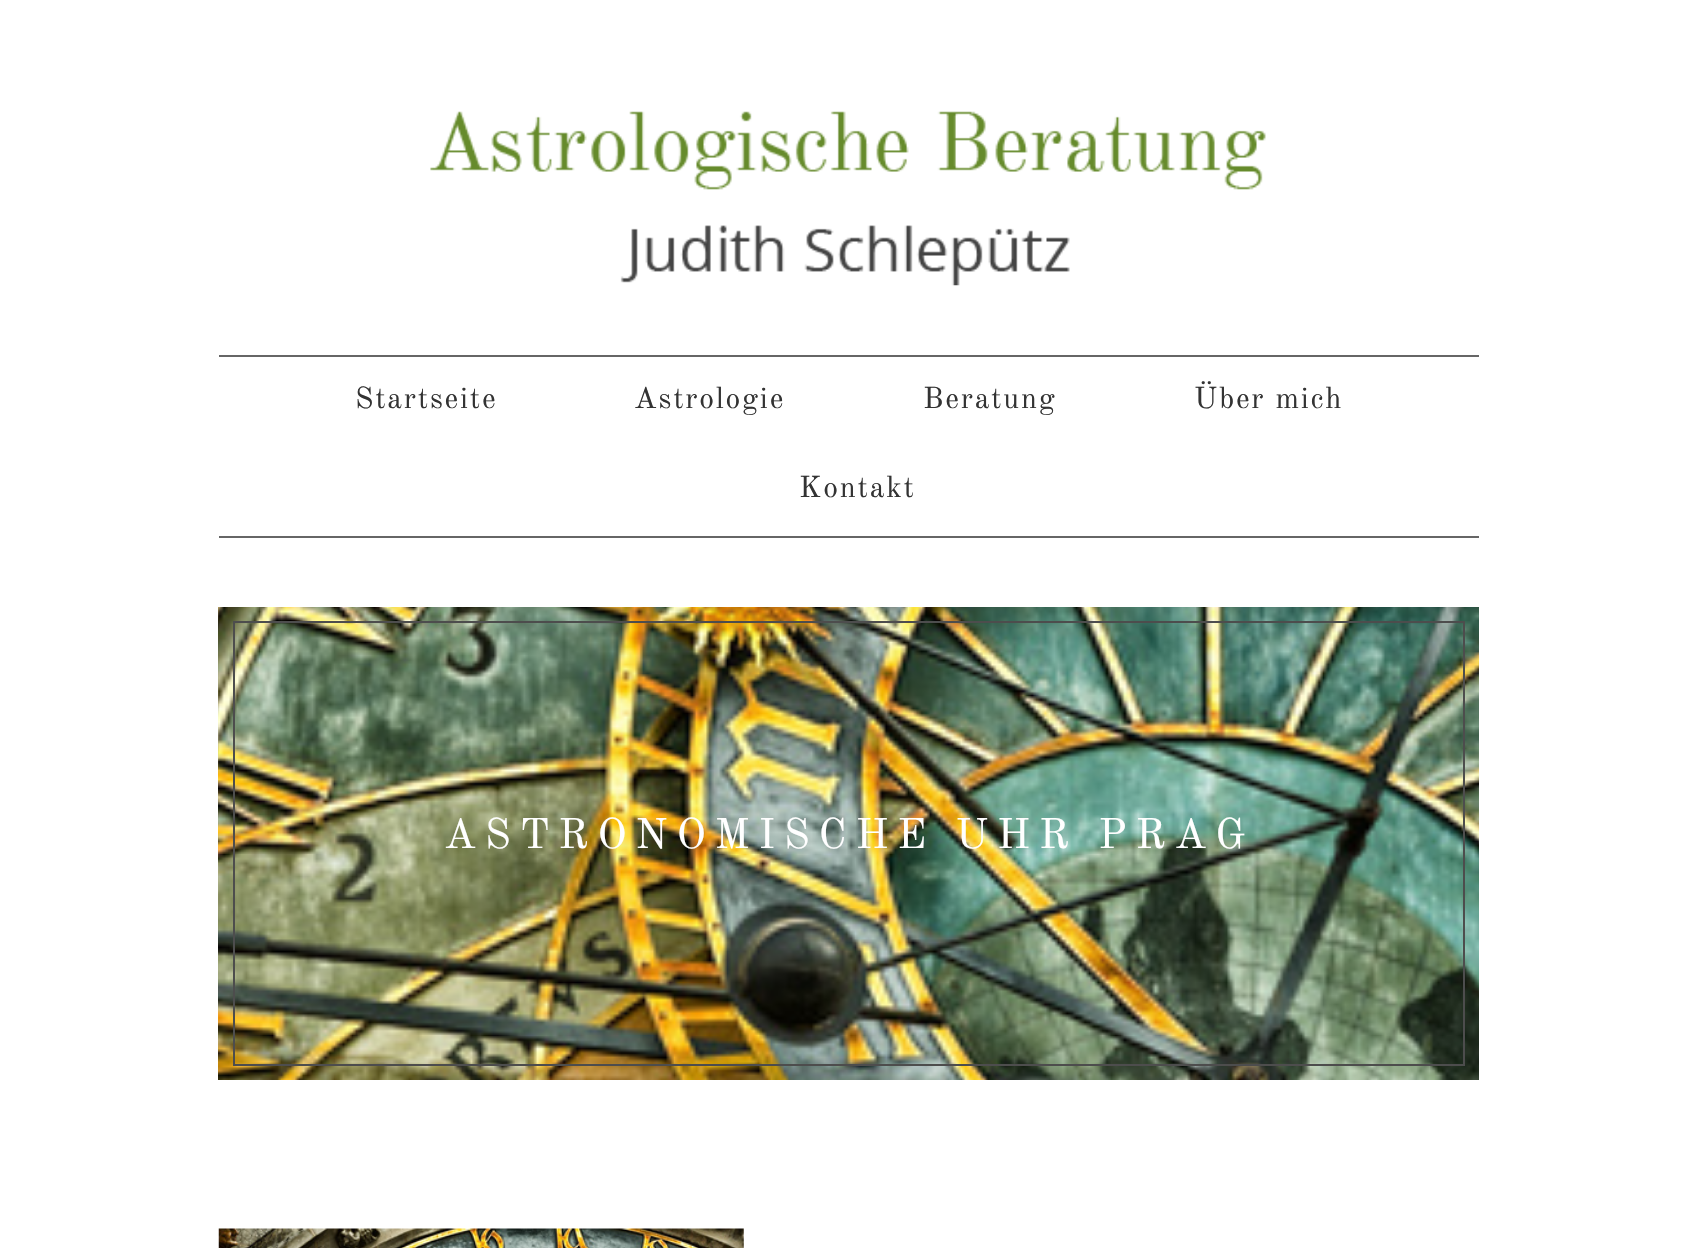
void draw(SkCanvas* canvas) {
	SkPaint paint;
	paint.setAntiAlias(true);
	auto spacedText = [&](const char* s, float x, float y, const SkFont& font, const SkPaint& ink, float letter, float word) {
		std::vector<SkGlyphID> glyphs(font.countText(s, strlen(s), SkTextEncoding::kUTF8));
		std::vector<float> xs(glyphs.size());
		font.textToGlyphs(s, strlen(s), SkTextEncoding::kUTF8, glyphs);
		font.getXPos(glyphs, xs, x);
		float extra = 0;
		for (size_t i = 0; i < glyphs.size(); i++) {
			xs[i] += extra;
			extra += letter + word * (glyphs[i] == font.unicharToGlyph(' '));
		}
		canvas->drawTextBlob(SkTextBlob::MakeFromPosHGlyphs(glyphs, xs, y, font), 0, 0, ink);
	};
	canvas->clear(0xffffffff);
	canvas->drawImageRect(SkImages::DeferredFromEncodedData(SkData::MakeFromFileName("img1.png")), SkRect::MakeXYWH(430, 111, 836, 175), SkSamplingOptions());
	paint.setColor(0xff666666);
	canvas->drawRect(SkRect::MakeXYWH(219, 355, 1260, 2), paint);
	canvas->drawRect(SkRect::MakeXYWH(219, 536, 1260, 2), paint);
	SkFont f1(fontMgr->matchFamilyStyle("Old Standard TT", SkFontStyle::Normal()), 29.75);
	f1.setSubpixel(true);
	paint.setColor(0xff333333);
	spacedText("Startseite", 355, 408, f1, paint, 1.75, 0);
	spacedText("Astrologie", 634, 408, f1, paint, 1.75, 0);
	spacedText("Beratung", 923, 408, f1, paint, 1.75, 0);
	spacedText("Über mich", 1194, 408, f1, paint, 1.75, 0);
	spacedText("Kontakt", 799, 497, f1, paint, 1.75, 0);
	canvas->drawImageRect(SkImages::DeferredFromEncodedData(SkData::MakeFromFileName("img2.png")), SkRect::MakeXYWH(218, 607, 1261, 473), SkSamplingOptions());
	paint.setStroke(true);
	paint.setStrokeWidth(2);
	paint.setColor(0xff4d4d4d);
	canvas->drawRect(SkRect::MakeXYWH(234, 622, 1230, 443), paint);
	SkFont f2(fontMgr->matchFamilyStyle("Old Standard TT", SkFontStyle::Normal()), 42);
	f2.setSubpixel(true);
	paint.setStroke(false);
	paint.setColor(0xffffffff);
	spacedText("ASTRONOMISCHE UHR PRAG", 444, 848, f2, paint, 8.75, 0);
	canvas->drawImageRect(SkImages::DeferredFromEncodedData(SkData::MakeFromFileName("img3.png")), SkRect::MakeXYWH(218, 1228, 526, 20), SkSamplingOptions());
}
